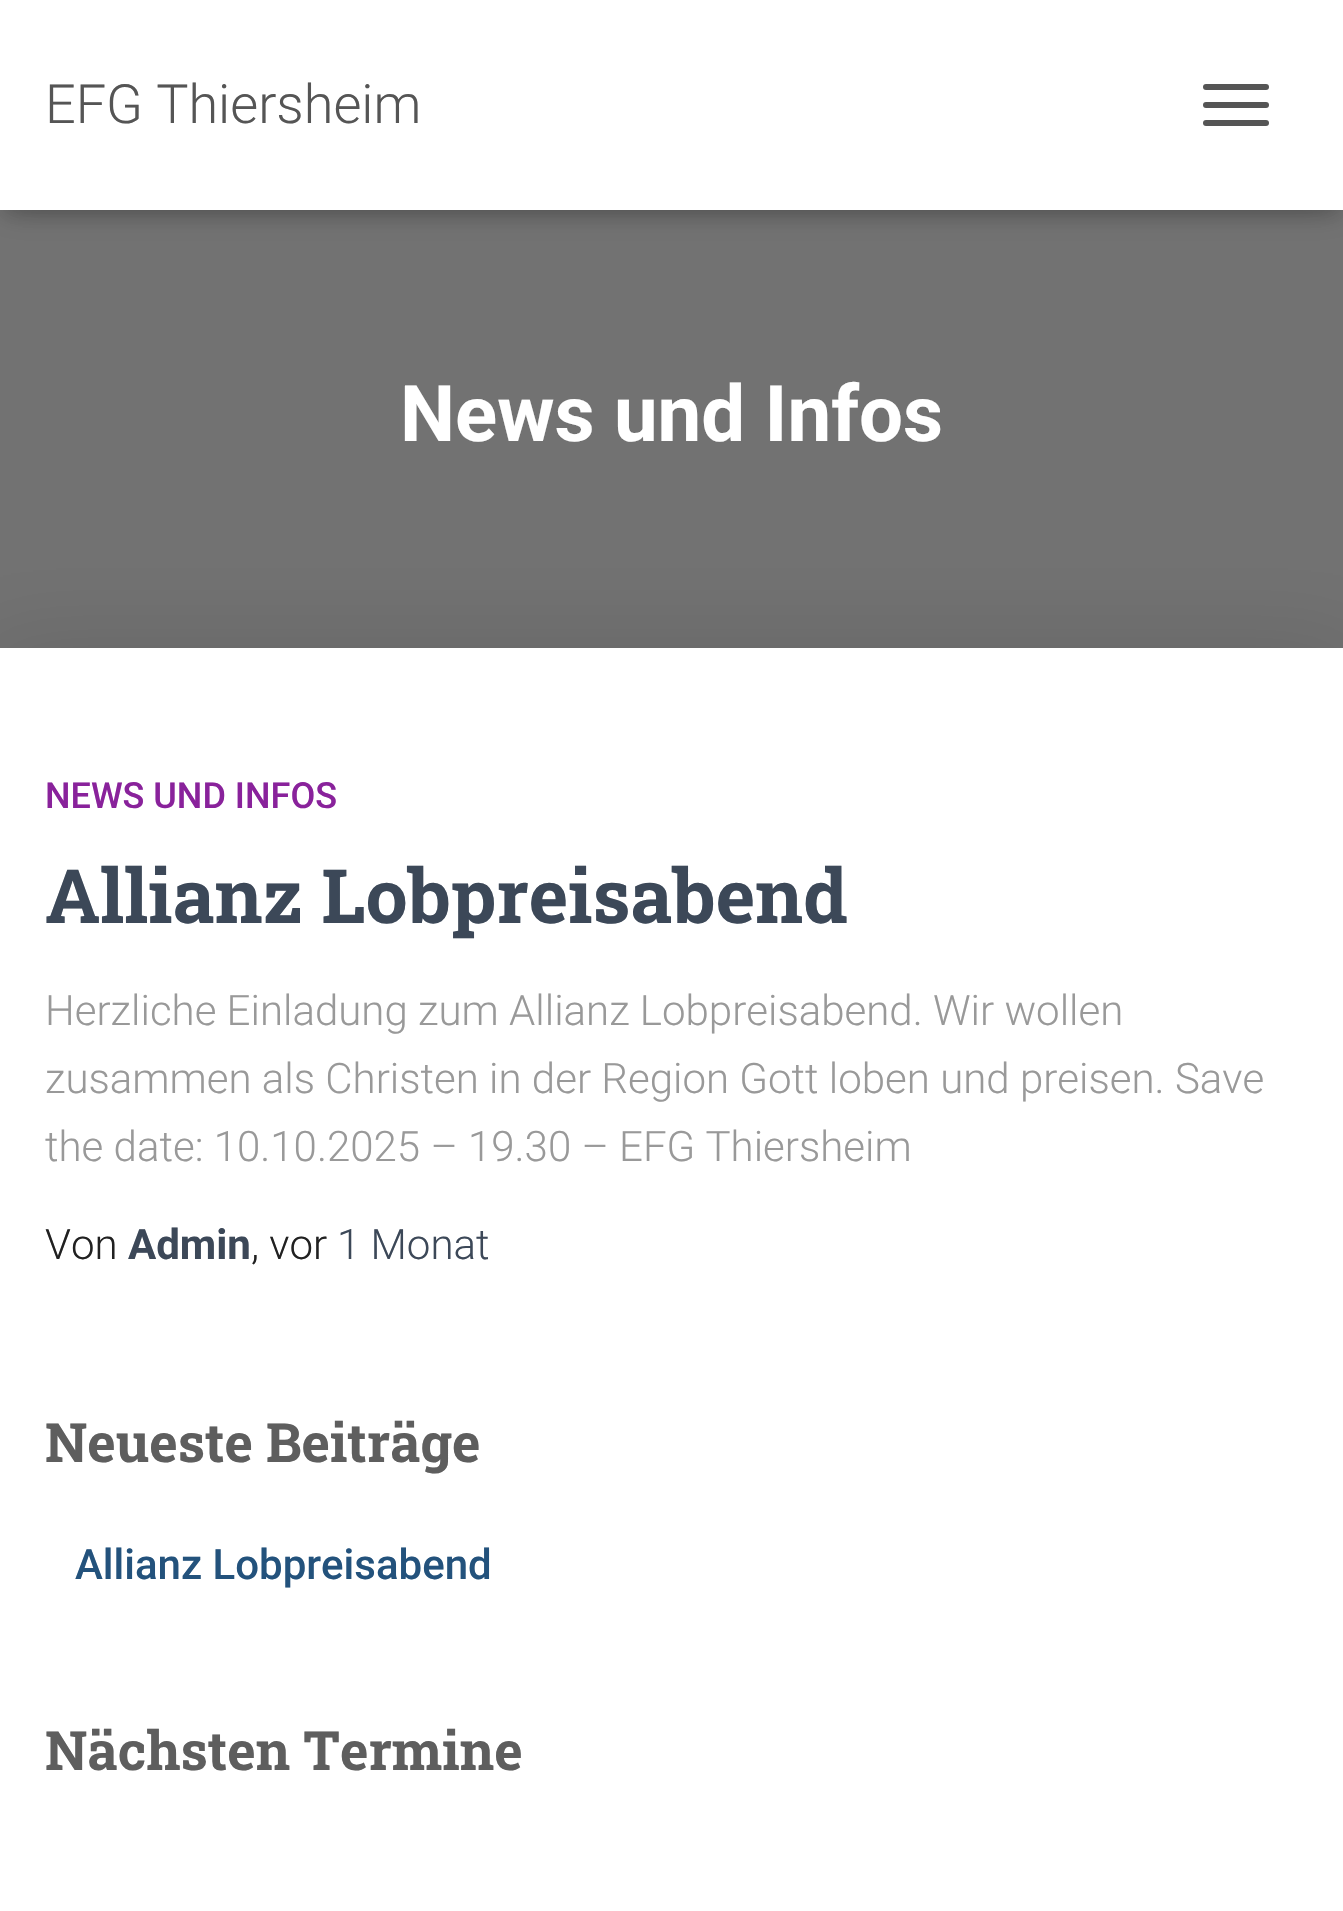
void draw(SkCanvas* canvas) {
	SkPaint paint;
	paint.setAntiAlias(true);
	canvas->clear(0xff727272);
	paint.setColor(0x1a000000);
	paint.setMaskFilter(SkMaskFilter::MakeBlur(kNormal_SkBlurStyle, 7.5));
	canvas->drawRect(SkRect::MakeXYWH(6, 18, 1332, 198), paint);
	paint.setMaskFilter(nullptr);
	paint.setColor(0x1f000000);
	paint.setMaskFilter(SkMaskFilter::MakeBlur(kNormal_SkBlurStyle, 15));
	canvas->drawRect(SkRect::MakeXYWH(0, 3, 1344, 210), paint);
	paint.setMaskFilter(nullptr);
	paint.setColor(0x6b000000);
	paint.setMaskFilter(SkMaskFilter::MakeBlur(kNormal_SkBlurStyle, 15));
	canvas->drawRect(SkRect::MakeXYWH(18, 21, 1308, 174), paint);
	paint.setMaskFilter(nullptr);
	paint.setColor(0xffffffff);
	canvas->drawRect(SkRect::MakeXYWH(0, 0, 1343, 210), paint);
	SkFont f1(fontMgr->matchFamilyStyle("Roboto", SkFontStyle(300, SkFontStyle::kNormal_Width, SkFontStyle::kUpright_Slant)), 54);
	f1.setSubpixel(true);
	paint.setColor(0xff555555);
	canvas->drawString("EFG Thiersheim", 45, 123, f1, paint);
	canvas->drawRoundRect(SkRect::MakeXYWH(1203, 84, 66, 6), 3, 3, paint);
	canvas->drawRoundRect(SkRect::MakeXYWH(1203, 102, 66, 6), 3, 3, paint);
	canvas->drawRoundRect(SkRect::MakeXYWH(1203, 120, 66, 6), 3, 3, paint);
	SkFont f2(fontMgr->matchFamilyStyle("Roboto", SkFontStyle::Bold()), 78);
	f2.setSubpixel(true);
	paint.setColor(0xffffffff);
	canvas->drawString("News und Infos", 400, 441, f2, paint);
	paint.setColor(0x1f000000);
	paint.setMaskFilter(SkMaskFilter::MakeBlur(kNormal_SkBlurStyle, 45));
	canvas->drawRect(SkRect::MakeXYWH(-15, 651, 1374, 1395), paint);
	paint.setMaskFilter(nullptr);
	paint.setColor(0xffffffff);
	canvas->drawRect(SkRect::MakeXYWH(0, 648, 1343, 1263), paint);
	SkFont f3(fontMgr->matchFamilyStyle("Roboto", SkFontStyle(500, SkFontStyle::kNormal_Width, SkFontStyle::kUpright_Slant)), 36);
	f3.setSubpixel(true);
	paint.setColor(0xff89229b);
	canvas->drawString("NEWS UND INFOS", 45, 808, f3, paint);
	SkFont f4(fontMgr->matchFamilyStyle("Roboto Slab", SkFontStyle::Bold()), 75);
	f4.setSubpixel(true);
	paint.setColor(0xff3c4858);
	canvas->drawString("Allianz Lobpreisabend", 45, 923, f4, paint);
	SkFont f5(fontMgr->matchFamilyStyle("Roboto", SkFontStyle(300, SkFontStyle::kNormal_Width, SkFontStyle::kUpright_Slant)), 42);
	f5.setSubpixel(true);
	paint.setColor(0xff999999);
	canvas->drawString("Herzliche Einladung zum Allianz Lobpreisabend. Wir wollen", 45, 1025, f5, paint);
	canvas->drawString("zusammen als Christen in der Region Gott loben und preisen. Save", 45, 1093, f5, paint);
	canvas->drawString("the date: 10.10.2025 – 19.30 – EFG Thiersheim", 45, 1161, f5, paint);
	paint.setColor(0xff212121);
	canvas->drawString("Von", 45, 1259, f5, paint);
	SkFont f6(fontMgr->matchFamilyStyle("Roboto", SkFontStyle::Bold()), 42);
	f6.setSubpixel(true);
	paint.setColor(0xff3c4858);
	canvas->drawString("Admin", 128, 1259, f6, paint);
	paint.setColor(0xff212121);
	canvas->drawString(", vor", 251, 1259, f5, paint);
	paint.setColor(0xff3c4858);
	canvas->drawString("1 Monat", 337, 1259, f5, paint);
	SkFont f7(fontMgr->matchFamilyStyle("Roboto Slab", SkFontStyle::Bold()), 54);
	f7.setSubpixel(true);
	paint.setColor(0xff5e5e5e);
	canvas->drawString("Neueste Beiträge", 45, 1462, f7, paint);
	SkFont f8(fontMgr->matchFamilyStyle("Roboto", SkFontStyle(500, SkFontStyle::kNormal_Width, SkFontStyle::kUpright_Slant)), 42);
	f8.setSubpixel(true);
	paint.setColor(0xff23527c);
	canvas->drawString("Allianz Lobpreisabend", 75, 1579, f8, paint);
	paint.setColor(0xff5e5e5e);
	canvas->drawString("Nächsten Termine", 45, 1770, f7, paint);
}
